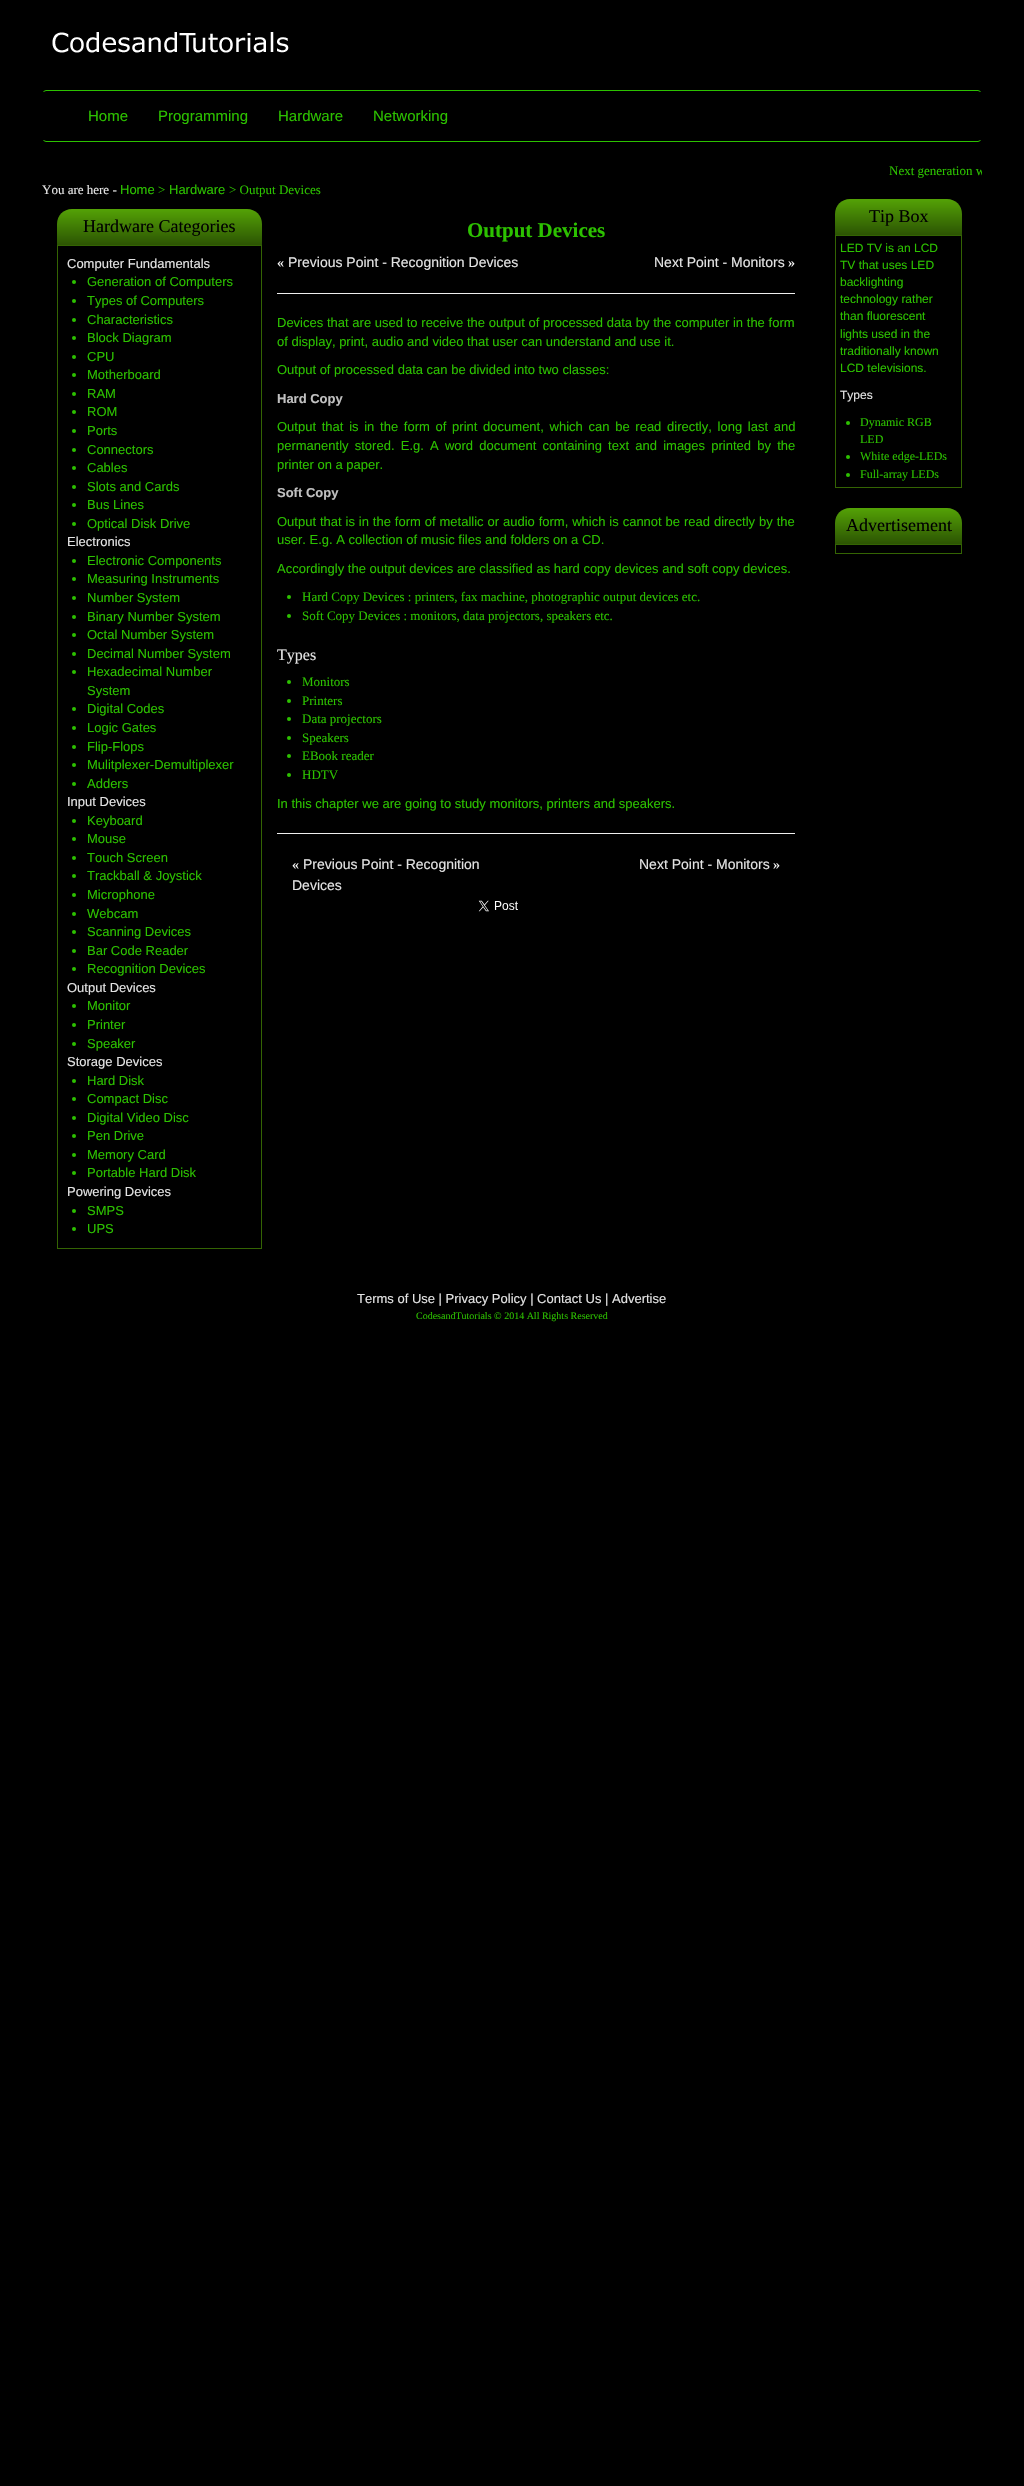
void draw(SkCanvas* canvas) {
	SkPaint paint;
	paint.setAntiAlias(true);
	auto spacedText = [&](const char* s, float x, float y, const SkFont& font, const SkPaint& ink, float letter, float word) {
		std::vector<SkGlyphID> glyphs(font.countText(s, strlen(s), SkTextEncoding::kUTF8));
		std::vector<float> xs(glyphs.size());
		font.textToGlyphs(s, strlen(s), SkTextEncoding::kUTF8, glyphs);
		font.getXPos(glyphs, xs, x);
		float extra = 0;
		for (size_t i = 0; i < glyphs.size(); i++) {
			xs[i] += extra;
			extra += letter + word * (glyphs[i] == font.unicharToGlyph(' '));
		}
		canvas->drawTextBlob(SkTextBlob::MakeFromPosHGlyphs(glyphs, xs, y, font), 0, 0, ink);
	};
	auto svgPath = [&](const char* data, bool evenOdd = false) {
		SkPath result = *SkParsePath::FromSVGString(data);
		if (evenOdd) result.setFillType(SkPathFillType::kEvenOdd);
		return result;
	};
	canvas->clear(0xff000000);
	canvas->drawImageRect(SkImages::DeferredFromEncodedData(SkData::MakeFromFileName("img1.png")), SkRect::MakeXYWH(52, 32, 237, 21), SkSamplingOptions());
	paint.setStroke(true);
	paint.setStrokeWidth(1);
	paint.setColor(0xff2cc100);
	canvas->drawPath(svgPath("M43.5 91.5L46 90.5H978L980.5 91.5"), paint);
	canvas->drawPath(svgPath("M980.5 140.5L978 141.5H46L43.5 140.5"), paint);
	SkFont f1(fontMgr->matchFamilyStyle("Liberation Sans", SkFontStyle::Normal()), 15);
	f1.setSubpixel(true);
	paint.setStroke(false);
	canvas->drawString("Home", 88, 121, f1, paint);
	canvas->drawString("Programming", 158, 121, f1, paint);
	canvas->drawString("Hardware", 278, 121, f1, paint);
	canvas->drawString("Networking", 373, 121, f1, paint);
	canvas->save();
	canvas->clipRect(SkRect::MakeXYWH(42, 162, 940, 19));
	SkFont f2(fontMgr->matchFamilyStyle("Liberation Serif", SkFontStyle::Normal()), 13);
	f2.setSubpixel(true);
	canvas->drawString("Next generation w", 889, 175, f2, paint);
	canvas->restore();
	paint.setColor(0xffe3e3e3);
	canvas->drawString("You are here -", 42, 194, f2, paint);
	SkFont f3(fontMgr->matchFamilyStyle("Liberation Sans", SkFontStyle::Normal()), 13);
	f3.setSubpixel(true);
	paint.setColor(0xff2cc100);
	canvas->drawString("Home", 120, 194, f3, paint);
	canvas->drawString(">", 158, 194, f2, paint);
	canvas->drawString("Hardware", 169, 194, f3, paint);
	canvas->drawString("> Output Devices", 229, 194, f2, paint);
	{
		const SkColor colors[] = {0xff54a206, 0xff2c5403};
		const float stops[] = {0, 1};
		const SkPoint ends[] = {{160, 209}, {160, 245}};
		paint.setShader(SkGradientShader::MakeLinear(ends, colors, stops, 2, SkTileMode::kClamp));
		paint.setAlpha(255);
	}
	canvas->drawPath(svgPath("M72 209H247C255.5 209 262 215.5 262 224V245H57V224C57 215.5 63.5 209 72 209Z"), paint);
	SkFont f4(fontMgr->matchFamilyStyle("Liberation Serif", SkFontStyle::Normal()), 18);
	f4.setSubpixel(true);
	paint.setShader(nullptr);
	paint.setColor(0xff000000);
	canvas->drawString("Hardware Categories", 83, 232, f4, paint);
	paint.setStroke(true);
	paint.setColor(0xff346403);
	canvas->drawRect(SkRect::MakeXYWH(57.5, 245.5, 204, 1003), paint);
	paint.setStroke(false);
	paint.setColor(0xffe3e3e3);
	canvas->drawString("Computer Fundamentals", 67, 268, f3, paint);
	paint.setColor(0xff2cc100);
	canvas->drawCircle(74, 282, 2, paint);
	canvas->drawString("Generation of Computers", 87, 286, f3, paint);
	canvas->drawCircle(74, 301, 2, paint);
	canvas->drawString("Types of Computers", 87, 305, f3, paint);
	canvas->drawCircle(74, 320, 2, paint);
	canvas->drawString("Characteristics", 87, 324, f3, paint);
	canvas->drawCircle(74, 338, 2, paint);
	canvas->drawString("Block Diagram", 87, 342, f3, paint);
	canvas->drawCircle(74, 357, 2, paint);
	canvas->drawString("CPU", 87, 361, f3, paint);
	canvas->drawCircle(74, 375, 2, paint);
	canvas->drawString("Motherboard", 87, 379, f3, paint);
	canvas->drawCircle(74, 394, 2, paint);
	canvas->drawString("RAM", 87, 398, f3, paint);
	canvas->drawCircle(74, 412, 2, paint);
	canvas->drawString("ROM", 87, 416, f3, paint);
	canvas->drawCircle(74, 431, 2, paint);
	canvas->drawString("Ports", 87, 435, f3, paint);
	canvas->drawCircle(74, 450, 2, paint);
	canvas->drawString("Connectors", 87, 454, f3, paint);
	canvas->drawCircle(74, 468, 2, paint);
	canvas->drawString("Cables", 87, 472, f3, paint);
	canvas->drawCircle(74, 487, 2, paint);
	canvas->drawString("Slots and Cards", 87, 491, f3, paint);
	canvas->drawCircle(74, 505, 2, paint);
	canvas->drawString("Bus Lines", 87, 509, f3, paint);
	canvas->drawCircle(74, 524, 2, paint);
	canvas->drawString("Optical Disk Drive", 87, 528, f3, paint);
	paint.setColor(0xffe3e3e3);
	canvas->drawString("Electronics", 67, 546, f3, paint);
	paint.setColor(0xff2cc100);
	canvas->drawCircle(74, 561, 2, paint);
	canvas->drawString("Electronic Components", 87, 565, f3, paint);
	canvas->drawCircle(74, 579, 2, paint);
	canvas->drawString("Measuring Instruments", 87, 583, f3, paint);
	canvas->drawCircle(74, 598, 2, paint);
	canvas->drawString("Number System", 87, 602, f3, paint);
	canvas->drawCircle(74, 617, 2, paint);
	canvas->drawString("Binary Number System", 87, 621, f3, paint);
	canvas->drawCircle(74, 635, 2, paint);
	canvas->drawString("Octal Number System", 87, 639, f3, paint);
	canvas->drawCircle(74, 654, 2, paint);
	canvas->drawString("Decimal Number System", 87, 658, f3, paint);
	canvas->drawCircle(74, 672, 2, paint);
	canvas->drawString("Hexadecimal Number", 87, 676, f3, paint);
	canvas->drawString("System", 87, 695, f3, paint);
	canvas->drawCircle(74, 709, 2, paint);
	canvas->drawString("Digital Codes", 87, 713, f3, paint);
	canvas->drawCircle(74, 728, 2, paint);
	canvas->drawString("Logic Gates", 87, 732, f3, paint);
	canvas->drawCircle(74, 747, 2, paint);
	canvas->drawString("Flip-Flops", 87, 751, f3, paint);
	canvas->drawCircle(74, 765, 2, paint);
	canvas->drawString("Mulitplexer-Demultiplexer", 87, 769, f3, paint);
	canvas->drawCircle(74, 784, 2, paint);
	canvas->drawString("Adders", 87, 788, f3, paint);
	paint.setColor(0xffe3e3e3);
	canvas->drawString("Input Devices", 67, 806, f3, paint);
	paint.setColor(0xff2cc100);
	canvas->drawCircle(74, 821, 2, paint);
	canvas->drawString("Keyboard", 87, 825, f3, paint);
	canvas->drawCircle(74, 839, 2, paint);
	canvas->drawString("Mouse", 87, 843, f3, paint);
	canvas->drawCircle(74, 858, 2, paint);
	canvas->drawString("Touch Screen", 87, 862, f3, paint);
	canvas->drawCircle(74, 876, 2, paint);
	canvas->drawString("Trackball & Joystick", 87, 880, f3, paint);
	canvas->drawCircle(74, 895, 2, paint);
	canvas->drawString("Microphone", 87, 899, f3, paint);
	canvas->drawCircle(74, 914, 2, paint);
	canvas->drawString("Webcam", 87, 918, f3, paint);
	canvas->drawCircle(74, 932, 2, paint);
	canvas->drawString("Scanning Devices", 87, 936, f3, paint);
	canvas->drawCircle(74, 951, 2, paint);
	canvas->drawString("Bar Code Reader", 87, 955, f3, paint);
	canvas->drawCircle(74, 969, 2, paint);
	canvas->drawString("Recognition Devices", 87, 973, f3, paint);
	paint.setColor(0xffe3e3e3);
	canvas->drawString("Output Devices", 67, 992, f3, paint);
	paint.setColor(0xff2cc100);
	canvas->drawCircle(74, 1006, 2, paint);
	canvas->drawString("Monitor", 87, 1010, f3, paint);
	canvas->drawCircle(74, 1025, 2, paint);
	canvas->drawString("Printer", 87, 1029, f3, paint);
	canvas->drawCircle(74, 1044, 2, paint);
	canvas->drawString("Speaker", 87, 1048, f3, paint);
	paint.setColor(0xffe3e3e3);
	canvas->drawString("Storage Devices", 67, 1066, f3, paint);
	paint.setColor(0xff2cc100);
	canvas->drawCircle(74, 1081, 2, paint);
	canvas->drawString("Hard Disk", 87, 1085, f3, paint);
	canvas->drawCircle(74, 1099, 2, paint);
	canvas->drawString("Compact Disc", 87, 1103, f3, paint);
	canvas->drawCircle(74, 1118, 2, paint);
	canvas->drawString("Digital Video Disc", 87, 1122, f3, paint);
	canvas->drawCircle(74, 1136, 2, paint);
	canvas->drawString("Pen Drive", 87, 1140, f3, paint);
	canvas->drawCircle(74, 1155, 2, paint);
	canvas->drawString("Memory Card", 87, 1159, f3, paint);
	canvas->drawCircle(74, 1173, 2, paint);
	canvas->drawString("Portable Hard Disk", 87, 1177, f3, paint);
	paint.setColor(0xffe3e3e3);
	canvas->drawString("Powering Devices", 67, 1196, f3, paint);
	paint.setColor(0xff2cc100);
	canvas->drawCircle(74, 1211, 2, paint);
	canvas->drawString("SMPS", 87, 1215, f3, paint);
	canvas->drawCircle(74, 1229, 2, paint);
	canvas->drawString("UPS", 87, 1233, f3, paint);
	SkFont f5(fontMgr->matchFamilyStyle("Liberation Serif", SkFontStyle::Bold()), 21);
	f5.setSubpixel(true);
	canvas->drawString("Output Devices", 467, 237, f5, paint);
	SkFont f6(fontMgr->matchFamilyStyle("Liberation Serif", SkFontStyle::Normal()), 14);
	f6.setSubpixel(true);
	paint.setColor(0xffffffff);
	canvas->drawString("«", 277, 267, f6, paint);
	SkFont f7(fontMgr->matchFamilyStyle("Liberation Sans", SkFontStyle::Normal()), 14);
	f7.setSubpixel(true);
	paint.setColor(0xffe3e3e3);
	canvas->drawString("Previous Point - Recognition Devices", 288, 267, f7, paint);
	canvas->drawString("Next Point - Monitors", 654, 267, f7, paint);
	paint.setColor(0xffffffff);
	canvas->drawString("»", 788, 267, f6, paint);
	paint.setColor(0xffeeeeee);
	canvas->drawRect(SkRect::MakeXYWH(277, 293, 518, 1), paint);
	paint.setColor(0xff2cc100);
	spacedText("Devices that are used to receive the output of processed data by the computer in the form", 277, 327, f3, paint, 0, 0.1);
	canvas->drawString("of display, print, audio and video that user can understand and use it.", 277, 346, f3, paint);
	canvas->drawString("Output of processed data can be divided into two classes:", 277, 374, f3, paint);
	SkFont f8(fontMgr->matchFamilyStyle("Liberation Sans", SkFontStyle::Bold()), 13);
	f8.setSubpixel(true);
	paint.setColor(0xffc1c1c1);
	canvas->drawString("Hard Copy", 277, 403, f8, paint);
	paint.setColor(0xff2cc100);
	spacedText("Output that is in the form of print document, which can be read directly, long last and", 277, 431, f3, paint, 0, 2.1);
	spacedText("permanently stored. E.g. A word document containing text and images printed by the", 277, 450, f3, paint, 0, 2.6);
	canvas->drawString("printer on a paper.", 277, 469, f3, paint);
	paint.setColor(0xffc1c1c1);
	canvas->drawString("Soft Copy", 277, 497, f8, paint);
	paint.setColor(0xff2cc100);
	spacedText("Output that is in the form of metallic or audio form, which is cannot be read directly by the", 277, 526, f3, paint, 0, 0.3);
	canvas->drawString("user. E.g. A collection of music files and folders on a CD.", 277, 544, f3, paint);
	canvas->drawString("Accordingly the output devices are classified as hard copy devices and soft copy devices.", 277, 573, f3, paint);
	canvas->drawCircle(289, 597, 2, paint);
	canvas->drawString("Hard Copy Devices : printers, fax machine, photographic output devices etc.", 302, 601, f2, paint);
	canvas->drawCircle(289, 616, 2, paint);
	canvas->drawString("Soft Copy Devices : monitors, data projectors, speakers etc.", 302, 620, f2, paint);
	SkFont f9(fontMgr->matchFamilyStyle("Liberation Serif", SkFontStyle::Normal()), 16);
	f9.setSubpixel(true);
	paint.setColor(0xffe3e3e3);
	canvas->drawString("Types", 277, 660, f9, paint);
	paint.setColor(0xff2cc100);
	canvas->drawCircle(289, 682, 2, paint);
	canvas->drawString("Monitors", 302, 686, f2, paint);
	canvas->drawCircle(289, 701, 2, paint);
	canvas->drawString("Printers", 302, 705, f2, paint);
	canvas->drawCircle(289, 719, 2, paint);
	canvas->drawString("Data projectors", 302, 723, f2, paint);
	canvas->drawCircle(289, 738, 2, paint);
	canvas->drawString("Speakers", 302, 742, f2, paint);
	canvas->drawCircle(289, 756, 2, paint);
	canvas->drawString("EBook reader", 302, 760, f2, paint);
	canvas->drawCircle(289, 775, 2, paint);
	canvas->drawString("HDTV", 302, 779, f2, paint);
	canvas->drawString("In this chapter we are going to study monitors, printers and speakers.", 277, 808, f3, paint);
	paint.setColor(0xffeeeeee);
	canvas->drawRect(SkRect::MakeXYWH(277, 833, 518, 1), paint);
	paint.setColor(0xffffffff);
	canvas->drawString("«", 292, 869, f6, paint);
	paint.setColor(0xffe3e3e3);
	canvas->drawString("Previous Point - Recognition", 303, 869, f7, paint);
	canvas->drawString("Devices", 292, 890, f7, paint);
	canvas->drawString("Next Point - Monitors", 639, 869, f7, paint);
	paint.setColor(0xffffffff);
	canvas->drawString("»", 773, 869, f6, paint);
	canvas->drawImageRect(SkImages::DeferredFromEncodedData(SkData::MakeFromFileName("img2.png")), SkRect::MakeXYWH(478, 900, 40, 12), SkSamplingOptions());
	{
		const SkColor colors[] = {0xff54a206, 0xff2c5403};
		const float stops[] = {0, 1};
		const SkPoint ends[] = {{899, 199}, {899, 235}};
		paint.setShader(SkGradientShader::MakeLinear(ends, colors, stops, 2, SkTileMode::kClamp));
		paint.setAlpha(255);
	}
	canvas->drawPath(svgPath("M850 199H947C955.5 199 962 205.5 962 214V235H835V214C835 205.5 841.5 199 850 199Z"), paint);
	paint.setShader(nullptr);
	paint.setColor(0xff000000);
	canvas->drawString("Tip Box", 869, 222, f4, paint);
	paint.setStroke(true);
	paint.setColor(0xff346403);
	canvas->drawRect(SkRect::MakeXYWH(835.5, 235.5, 126, 252), paint);
	SkFont f10(fontMgr->matchFamilyStyle("Liberation Sans", SkFontStyle::Normal()), 12);
	f10.setSubpixel(true);
	paint.setStroke(false);
	paint.setColor(0xff2cc100);
	canvas->drawString("LED TV is an LCD", 840, 252, f10, paint);
	canvas->drawString("TV that uses LED", 840, 269, f10, paint);
	canvas->drawString("backlighting", 840, 286, f10, paint);
	canvas->drawString("technology rather", 840, 303, f10, paint);
	canvas->drawString("than fluorescent", 840, 320, f10, paint);
	canvas->drawString("lights used in the", 840, 338, f10, paint);
	canvas->drawString("traditionally known", 840, 355, f10, paint);
	canvas->drawString("LCD televisions.", 840, 372, f10, paint);
	paint.setColor(0xffe3e3e3);
	canvas->drawString("Types", 840, 399, f10, paint);
	paint.setColor(0xff2cc100);
	canvas->drawCircle(848, 423, 2, paint);
	SkFont f11(fontMgr->matchFamilyStyle("Liberation Serif", SkFontStyle::Normal()), 12);
	f11.setSubpixel(true);
	canvas->drawString("Dynamic RGB", 860, 426, f11, paint);
	canvas->drawString("LED", 860, 443, f11, paint);
	canvas->drawCircle(848, 457, 2, paint);
	canvas->drawString("White edge-LEDs", 860, 460, f11, paint);
	canvas->drawCircle(848, 475, 2, paint);
	canvas->drawString("Full-array LEDs", 860, 478, f11, paint);
	{
		const SkColor colors[] = {0xff54a206, 0xff2c5403};
		const float stops[] = {0, 1};
		const SkPoint ends[] = {{899, 508}, {899, 544}};
		paint.setShader(SkGradientShader::MakeLinear(ends, colors, stops, 2, SkTileMode::kClamp));
		paint.setAlpha(255);
	}
	canvas->drawPath(svgPath("M850 508H947C955.5 508 962 514.5 962 523V544H835V523C835 514.5 841.5 508 850 508Z"), paint);
	paint.setShader(nullptr);
	paint.setColor(0xff000000);
	canvas->drawString("Advertisement", 846, 531, f4, paint);
	paint.setStroke(true);
	paint.setColor(0xff346403);
	canvas->drawRect(SkRect::MakeXYWH(835.5, 544.5, 126, 9), paint);
	paint.setStroke(false);
	paint.setColor(0xffe3e3e3);
	canvas->drawString("Terms of Use | Privacy Policy | Contact Us | Advertise", 357, 1303, f3, paint);
	SkFont f12(fontMgr->matchFamilyStyle("Liberation Serif", SkFontStyle::Normal()), 10);
	f12.setSubpixel(true);
	paint.setColor(0xff2cc100);
	canvas->drawString("CodesandTutorials © 2014 All Rights Reserved", 416, 1319, f12, paint);
}
